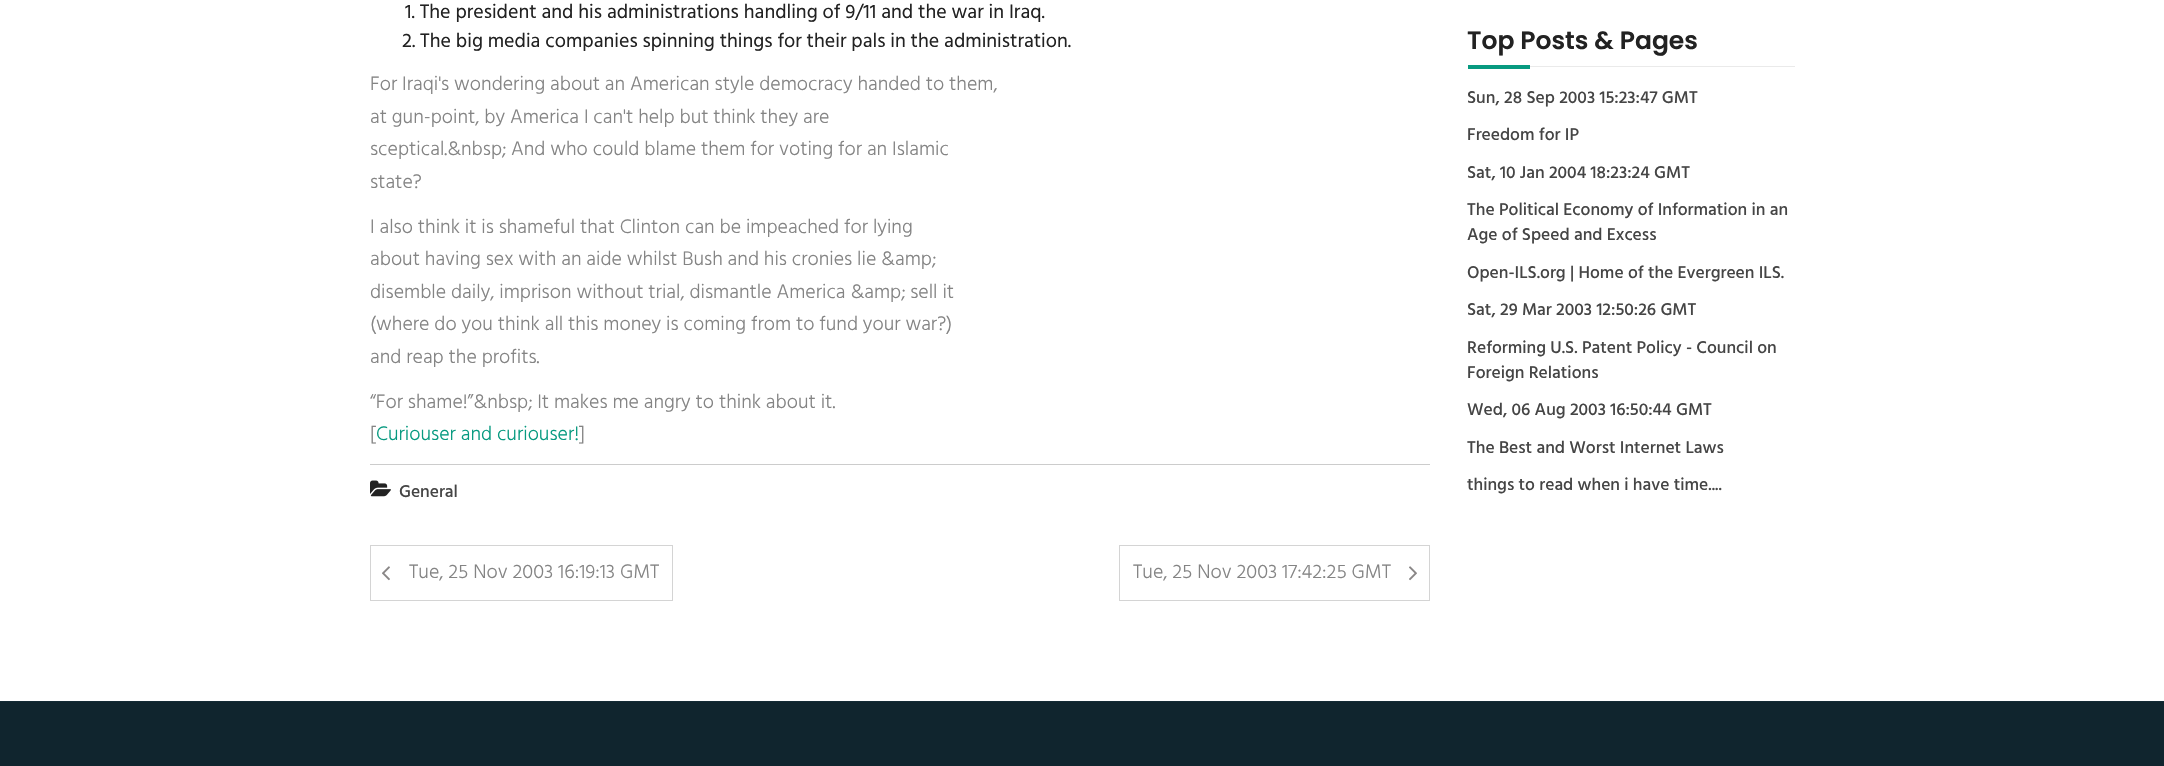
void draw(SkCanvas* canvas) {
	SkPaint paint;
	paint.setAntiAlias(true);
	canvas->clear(0xffffffff);
	SkFont f1(fontMgr->matchFamilyStyle("Hind", SkFontStyle::Normal()), 20);
	f1.setSubpixel(true);
	paint.setColor(0xff222222);
	canvas->drawString("1. The president and his administrations handling of 9/11 and the war in Iraq.", 405, 18, f1, paint);
	canvas->drawString("2. The big media companies spinning things for their pals in the administration.", 402, 47, f1, paint);
	SkFont f2(fontMgr->matchFamilyStyle("Hind", SkFontStyle(300, SkFontStyle::kNormal_Width, SkFontStyle::kUpright_Slant)), 20);
	f2.setSubpixel(true);
	paint.setColor(0xff848484);
	canvas->drawString("For Iraqi's wondering about an American style democracy handed to them,", 370, 90, f2, paint);
	canvas->drawString("at gun-point, by America I can't help but think they are", 370, 123, f2, paint);
	canvas->drawString("sceptical.&nbsp; And who could blame them for voting for an Islamic", 370, 155, f2, paint);
	canvas->drawString("state?", 370, 188, f2, paint);
	canvas->drawString("I also think it is shameful that Clinton can be impeached for lying", 370, 233, f2, paint);
	canvas->drawString("about having sex with an aide whilst Bush and his cronies lie &amp;", 370, 265, f2, paint);
	canvas->drawString("disemble daily, imprison without trial, dismantle America &amp; sell it", 370, 298, f2, paint);
	canvas->drawString("(where do you think all this money is coming from to fund your war?)", 370, 330, f2, paint);
	canvas->drawString("and reap the profits.", 370, 363, f2, paint);
	canvas->drawString("“For shame!”&nbsp; It makes me angry to think about it.", 370, 408, f2, paint);
	canvas->drawString("[", 370, 440, f2, paint);
	paint.setColor(0xff079a80);
	canvas->drawString("Curiouser and curiouser!", 376, 440, f2, paint);
	paint.setColor(0xff848484);
	canvas->drawString("]", 579, 440, f2, paint);
	paint.setColor(0xffcccccc);
	canvas->drawRect(SkRect::MakeXYWH(370, 464, 1060, 1), paint);
	canvas->drawImageRect(SkImages::DeferredFromEncodedData(SkData::MakeFromFileName("img1.png")), SkRect::MakeXYWH(370, 480, 21, 17), SkSamplingOptions());
	SkFont f3(fontMgr->matchFamilyStyle("Hind", SkFontStyle(500, SkFontStyle::kNormal_Width, SkFontStyle::kUpright_Slant)), 17.5);
	f3.setSubpixel(true);
	paint.setColor(0xff454545);
	canvas->drawString("General", 399, 497, f3, paint);
	paint.setStroke(true);
	paint.setStrokeWidth(1);
	paint.setColor(0xffd4d4d4);
	canvas->drawRect(SkRect::MakeXYWH(370.5, 545.5, 302, 55), paint);
	canvas->drawImageRect(SkImages::DeferredFromEncodedData(SkData::MakeFromFileName("img2.png")), SkRect::MakeXYWH(382, 566, 8, 15), SkSamplingOptions());
	paint.setStroke(false);
	paint.setColor(0xff848484);
	canvas->drawString("Tue, 25 Nov 2003 16:19:13 GMT", 409, 578, f2, paint);
	paint.setStroke(true);
	paint.setColor(0xffd4d4d4);
	canvas->drawRect(SkRect::MakeXYWH(1119.5, 545.5, 310, 55), paint);
	paint.setStroke(false);
	paint.setColor(0xff848484);
	canvas->drawString("Tue, 25 Nov 2003 17:42:25 GMT", 1133, 578, f2, paint);
	canvas->drawImageRect(SkImages::DeferredFromEncodedData(SkData::MakeFromFileName("img3.png")), SkRect::MakeXYWH(1409, 566, 8, 15), SkSamplingOptions());
	paint.setColor(0xffeaeaea);
	canvas->drawRect(SkRect::MakeXYWH(1530, 66, 265, 1), paint);
	SkFont f4(fontMgr->matchFamilyStyle("Poppins", SkFontStyle(600, SkFontStyle::kNormal_Width, SkFontStyle::kUpright_Slant)), 25);
	f4.setSubpixel(true);
	paint.setColor(0xff222222);
	canvas->drawString("Top Posts & Pages", 1467, 49, f4, paint);
	paint.setColor(0xff079a80);
	canvas->drawRect(SkRect::MakeXYWH(1468, 65, 62, 4), paint);
	paint.setColor(0xff454545);
	canvas->drawString("Sun, 28 Sep 2003 15:23:47 GMT", 1467, 103, f3, paint);
	canvas->drawString("Freedom for IP", 1467, 140, f3, paint);
	canvas->drawString("Sat, 10 Jan 2004 18:23:24 GMT", 1467, 178, f3, paint);
	canvas->drawString("The Political Economy of Information in an", 1467, 215, f3, paint);
	canvas->drawString("Age of Speed and Excess", 1467, 240, f3, paint);
	canvas->drawString("Open-ILS.org | Home of the Evergreen ILS.", 1467, 278, f3, paint);
	canvas->drawString("Sat, 29 Mar 2003 12:50:26 GMT", 1467, 315, f3, paint);
	canvas->drawString("Reforming U.S. Patent Policy - Council on", 1467, 353, f3, paint);
	canvas->drawString("Foreign Relations", 1467, 378, f3, paint);
	canvas->drawString("Wed, 06 Aug 2003 16:50:44 GMT", 1467, 415, f3, paint);
	canvas->drawString("The Best and Worst Internet Laws", 1467, 453, f3, paint);
	canvas->drawString("things to read when i have time....", 1467, 490, f3, paint);
	paint.setColor(0xff10252e);
	canvas->drawRect(SkRect::MakeXYWH(0, 702, 2164, 64), paint);
	paint.setColor(0xff142b35);
	canvas->drawRect(SkRect::MakeXYWH(0, 701, 2164, 1), paint);
}
